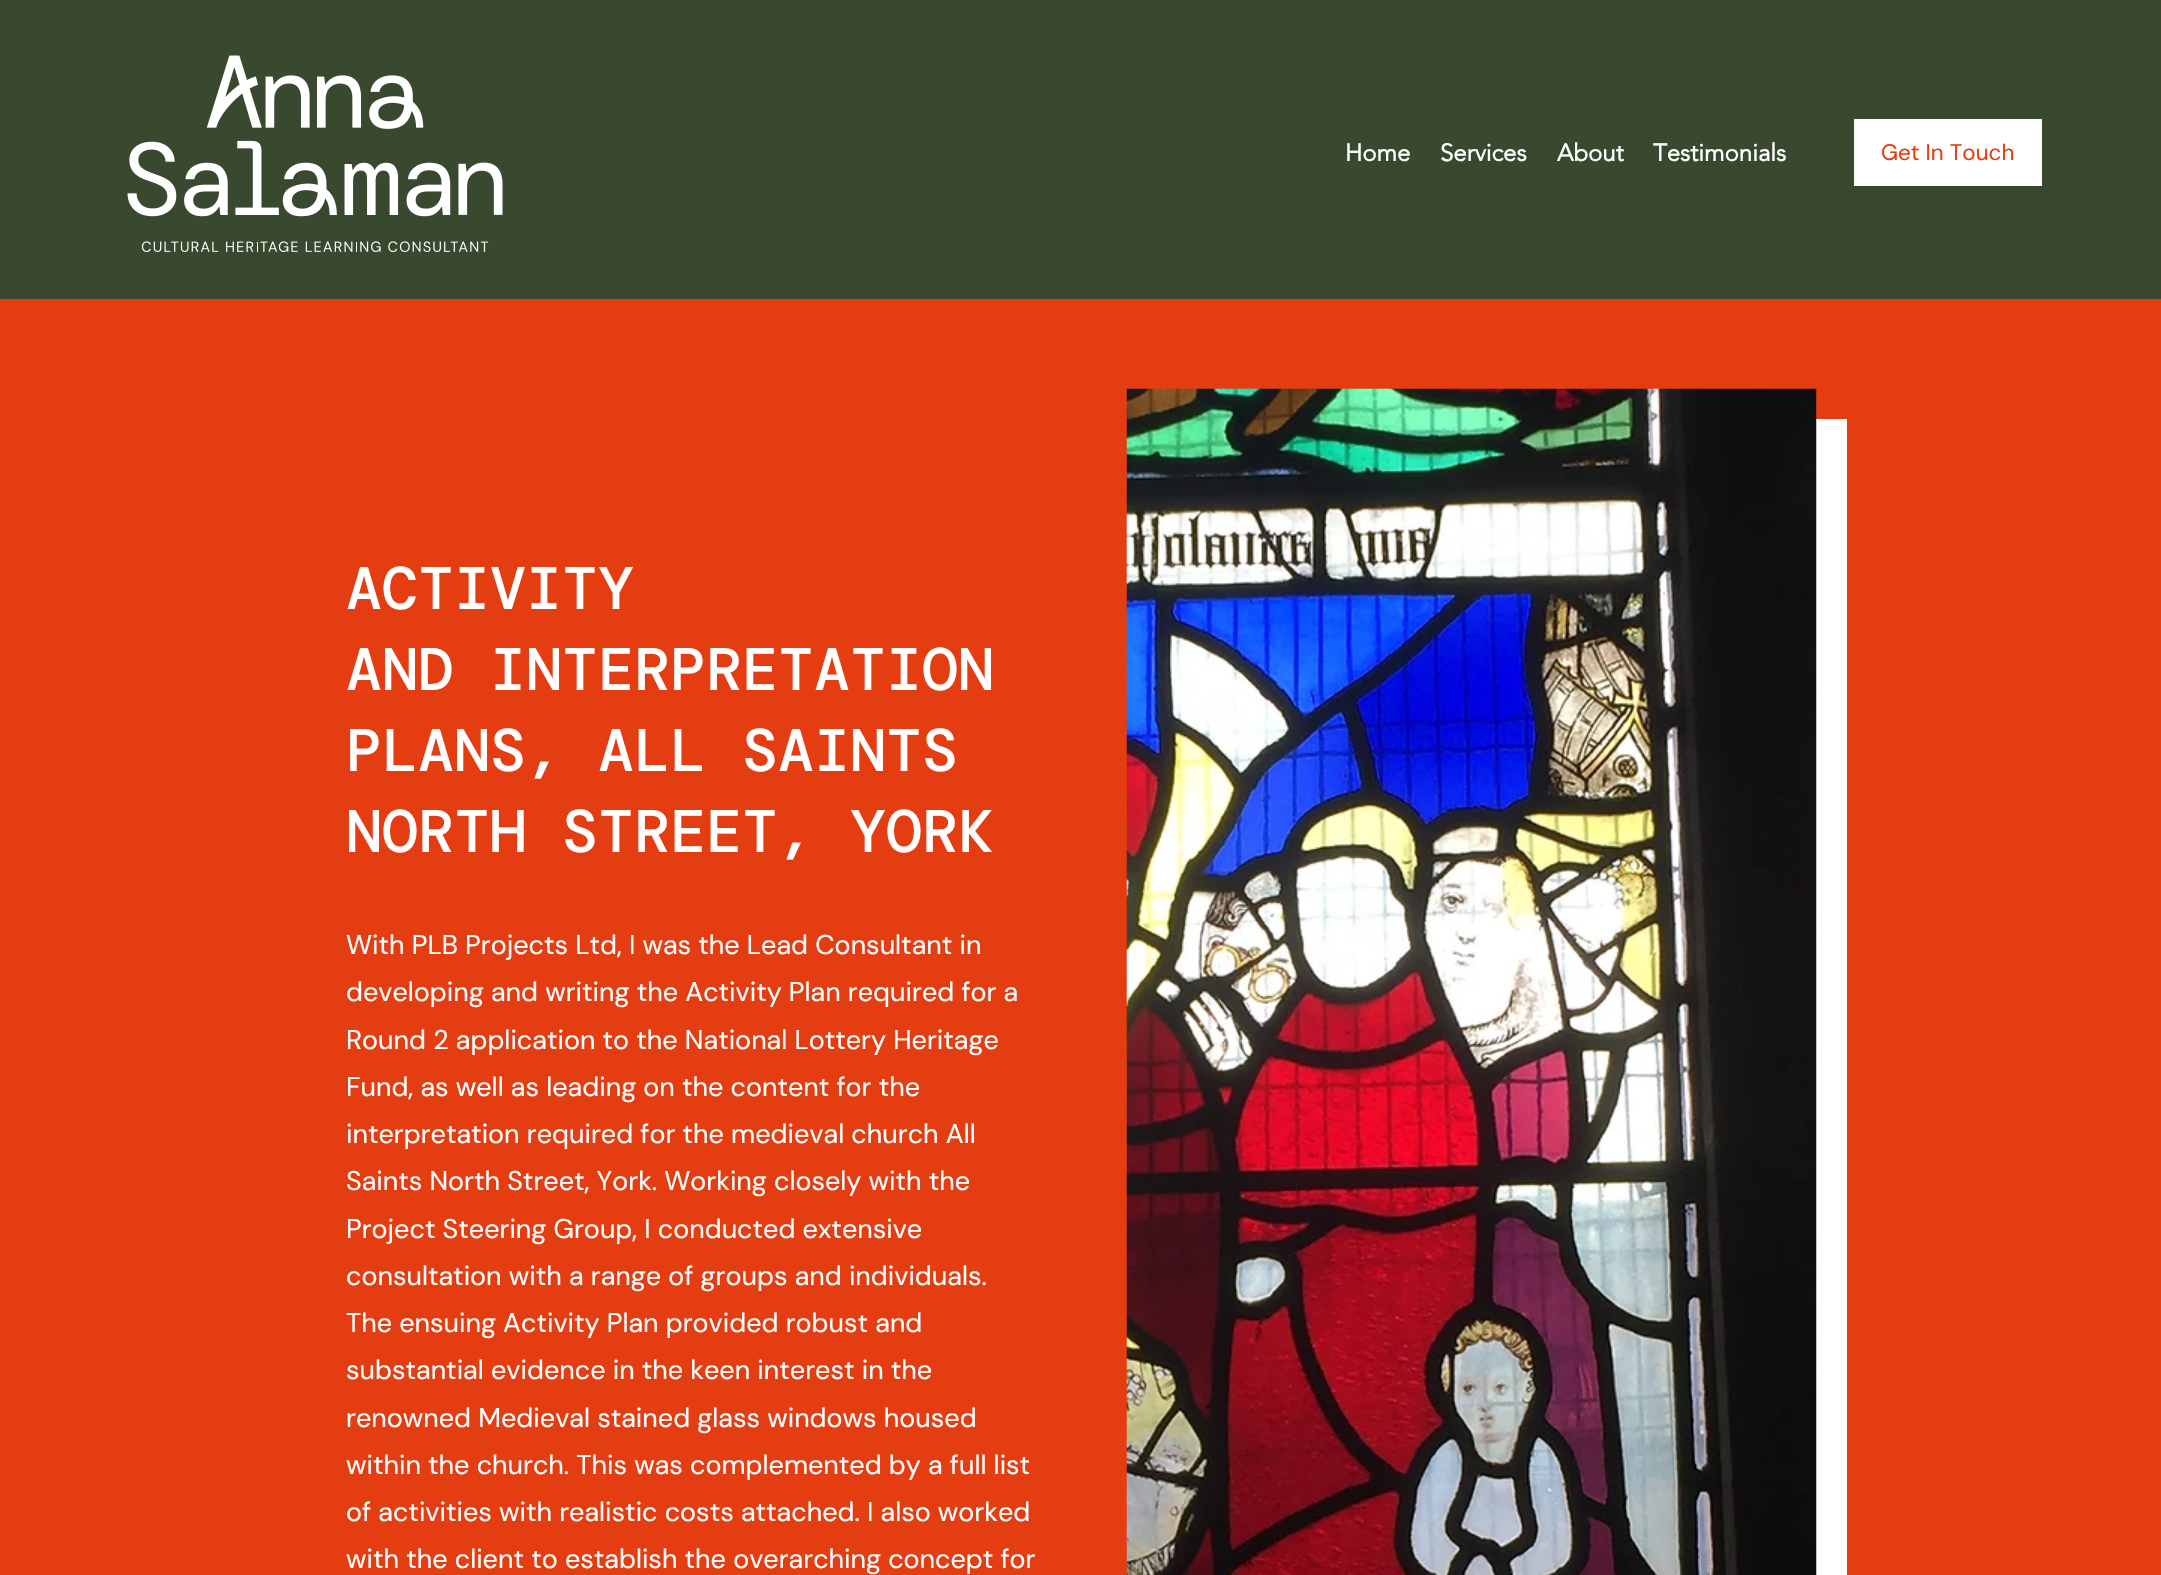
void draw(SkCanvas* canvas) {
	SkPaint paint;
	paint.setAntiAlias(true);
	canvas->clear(0xffe43d12);
	paint.setColor(0xff394930);
	canvas->drawRect(SkRect::MakeXYWH(0, 0, 2161, 299), paint);
	canvas->drawImageRect(SkImages::DeferredFromEncodedData(SkData::MakeFromFileName("img1.png")), SkRect::MakeXYWH(127, 55, 376, 197), SkSamplingOptions());
	SkFont f1(fontMgr->matchFamilyStyle("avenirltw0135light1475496", SkFontStyle::Bold()), 24);
	f1.setSubpixel(true);
	paint.setColor(0xffffffff);
	canvas->drawString("Home", 1345, 161, f1, paint);
	canvas->drawString("Services", 1440, 161, f1, paint);
	canvas->drawString("About", 1557, 161, f1, paint);
	canvas->drawString("Testimonials", 1653, 161, f1, paint);
	canvas->drawRect(SkRect::MakeXYWH(1854, 119, 188, 67), paint);
	SkFont f2(fontMgr->matchFamilyStyle("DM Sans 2", SkFontStyle::Normal()), 22.5);
	f2.setSubpixel(true);
	paint.setColor(0xffe43d12);
	canvas->drawString("Get In Touch", 1881, 160, f2, paint);
	SkFont f3(fontMgr->matchFamilyStyle("DM Mono", SkFontStyle(500, SkFontStyle::kNormal_Width, SkFontStyle::kUpright_Slant)), 60);
	f3.setSubpixel(true);
	paint.setColor(0xffffffff);
	canvas->drawString("ACTIVITY", 346, 609, f3, paint);
	canvas->drawString("AND INTERPRETATION", 346, 690, f3, paint);
	canvas->drawString("PLANS, ALL SAINTS", 346, 771, f3, paint);
	canvas->drawString("NORTH STREET, YORK", 346, 852, f3, paint);
	SkFont f4(fontMgr->matchFamilyStyle("DM Sans", SkFontStyle::Normal()), 27);
	f4.setSubpixel(true);
	canvas->drawString("With PLB Projects Ltd, I was the Lead Consultant in", 346, 954, f4, paint);
	canvas->drawString("developing and writing the Activity Plan required for a", 346, 1001, f4, paint);
	canvas->drawString("Round 2 application to the National Lottery Heritage", 346, 1049, f4, paint);
	canvas->drawString("Fund, as well as leading on the content for the", 346, 1096, f4, paint);
	canvas->drawString("interpretation required for the medieval church All", 346, 1143, f4, paint);
	canvas->drawString("Saints North Street, York. Working closely with the", 346, 1190, f4, paint);
	canvas->drawString("Project Steering Group, I conducted extensive", 346, 1238, f4, paint);
	canvas->drawString("consultation with a range of groups and individuals.", 346, 1285, f4, paint);
	canvas->drawString("The ensuing Activity Plan provided robust and", 346, 1332, f4, paint);
	canvas->drawString("substantial evidence in the keen interest in the", 346, 1379, f4, paint);
	canvas->drawString("renowned Medieval stained glass windows housed", 346, 1427, f4, paint);
	canvas->drawString("within the church. This was complemented by a full list", 346, 1474, f4, paint);
	canvas->drawString("of activities with realistic costs attached. I also worked", 346, 1521, f4, paint);
	canvas->drawString("with the client to establish the overarching concept for", 346, 1568, f4, paint);
	canvas->drawRect(SkRect::MakeXYWH(1816, 419, 31, 1156), paint);
	canvas->drawImageRect(SkImages::DeferredFromEncodedData(SkData::MakeFromFileName("img2.png")), SkRect::MakeXYWH(1126, 388, 691, 1187), SkSamplingOptions());
}
